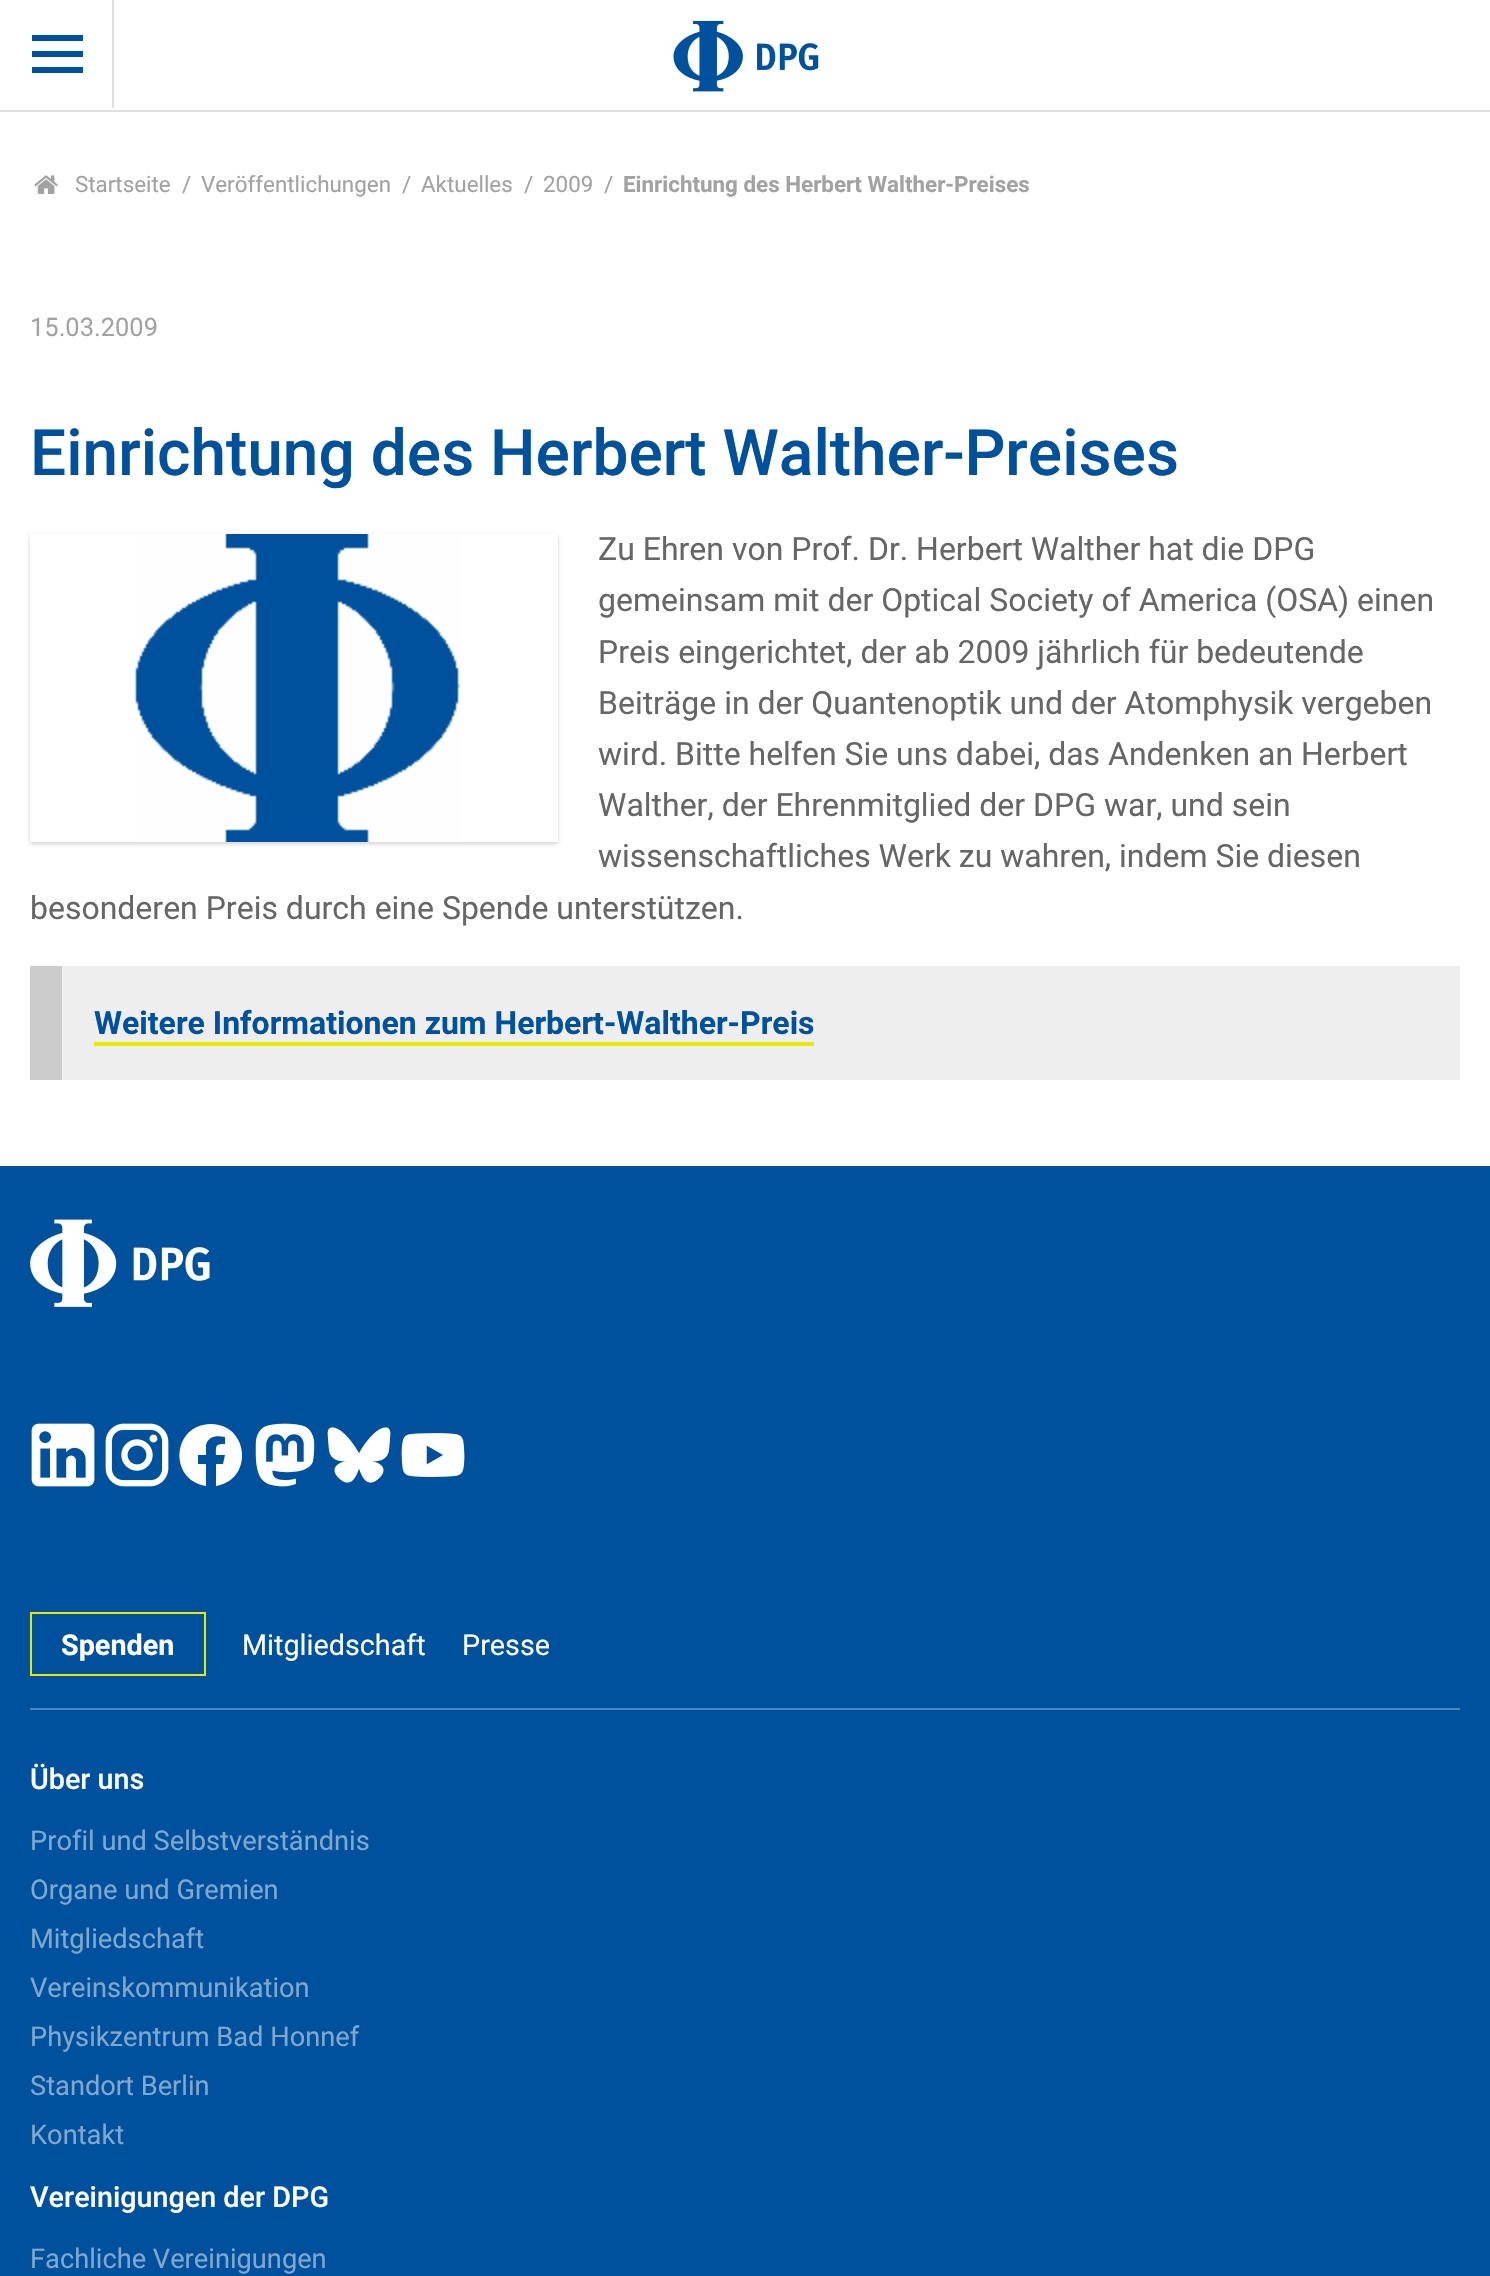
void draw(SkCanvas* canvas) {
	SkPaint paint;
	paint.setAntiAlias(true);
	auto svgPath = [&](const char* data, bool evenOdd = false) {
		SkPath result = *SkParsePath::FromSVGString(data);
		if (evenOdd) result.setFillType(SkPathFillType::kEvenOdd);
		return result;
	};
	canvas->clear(0xffffffff);
	paint.setColor(0xffdfdfdf);
	canvas->drawRect(SkRect::MakeXYWH(0, 110, 1490, 2), paint);
	canvas->drawRect(SkRect::MakeXYWH(112, 0, 2, 108), paint);
	paint.setColor(0xff00519d);
	canvas->drawRect(SkRect::MakeXYWH(32, 35, 51, 6), paint);
	canvas->drawRect(SkRect::MakeXYWH(32, 51, 51, 6), paint);
	canvas->drawRect(SkRect::MakeXYWH(32, 67, 51, 6), paint);
	canvas->drawImageRect(SkImages::DeferredFromEncodedData(SkData::MakeFromFileName("img1.png")), SkRect::MakeXYWH(673, 20, 146, 72), SkSamplingOptions());
	canvas->drawImageRect(SkImages::DeferredFromEncodedData(SkData::MakeFromFileName("img2.png")), SkRect::MakeXYWH(34, 175, 24, 19), SkSamplingOptions());
	SkFont f1(fontMgr->matchFamilyStyle("Roboto", SkFontStyle::Normal()), 22.4);
	f1.setSubpixel(true);
	paint.setColor(0xffa2a2a2);
	canvas->drawString("Startseite", 75, 192, f1, paint);
	canvas->drawString("/", 182, 192, f1, paint);
	canvas->drawString("Veröffentlichungen", 201, 192, f1, paint);
	canvas->drawString("/", 402, 192, f1, paint);
	canvas->drawString("Aktuelles", 421, 192, f1, paint);
	canvas->drawString("/", 524, 192, f1, paint);
	canvas->drawString("2009", 543, 192, f1, paint);
	canvas->drawString("/", 604, 192, f1, paint);
	SkFont f2(fontMgr->matchFamilyStyle("Roboto", SkFontStyle::Bold()), 22.4);
	f2.setSubpixel(true);
	canvas->drawString("Einrichtung des Herbert Walther-Preises", 623, 192, f2, paint);
	SkFont f3(fontMgr->matchFamilyStyle("Roboto", SkFontStyle::Normal()), 25.5);
	f3.setSubpixel(true);
	canvas->drawString("15.03.2009", 30, 336, f3, paint);
	SkFont f4(fontMgr->matchFamilyStyle("Roboto", SkFontStyle(500, SkFontStyle::kNormal_Width, SkFontStyle::kUpright_Slant)), 64);
	f4.setSubpixel(true);
	paint.setColor(0xff00519d);
	canvas->drawString("Einrichtung des Herbert Walther-Preises", 30, 475, f4, paint);
	canvas->save();
	canvas->clipPath(svgPath("M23 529H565V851H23ZM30 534H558V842H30Z", true), true);
	paint.setColor(0x2b000000);
	paint.setMaskFilter(SkMaskFilter::MakeBlur(kNormal_SkBlurStyle, 2));
	canvas->drawRect(SkRect::MakeXYWH(30, 536, 528, 308), paint);
	paint.setMaskFilter(nullptr);
	canvas->restore();
	canvas->drawImageRect(SkImages::DeferredFromEncodedData(SkData::MakeFromFileName("img3.png")), SkRect::MakeXYWH(135, 534, 326, 308), SkSamplingOptions());
	SkFont f5(fontMgr->matchFamilyStyle("Roboto", SkFontStyle::Normal()), 32);
	f5.setSubpixel(true);
	paint.setColor(0xff666666);
	canvas->drawString("Zu Ehren von Prof. Dr. Herbert Walther hat die DPG", 598, 560, f5, paint);
	canvas->drawString("gemeinsam mit der Optical Society of America (OSA) einen", 598, 611, f5, paint);
	canvas->drawString("Preis eingerichtet, der ab 2009 jährlich für bedeutende", 598, 663, f5, paint);
	canvas->drawString("Beiträge in der Quantenoptik und der Atomphysik vergeben", 598, 714, f5, paint);
	canvas->drawString("wird. Bitte helfen Sie uns dabei, das Andenken an Herbert", 598, 765, f5, paint);
	canvas->drawString("Walther, der Ehrenmitglied der DPG war, und sein", 598, 816, f5, paint);
	canvas->drawString("wissenschaftliches Werk zu wahren, indem Sie diesen", 598, 867, f5, paint);
	canvas->drawString("besonderen Preis durch eine Spende unterstützen.", 30, 919, f5, paint);
	paint.setColor(0xffeeeeee);
	canvas->drawRect(SkRect::MakeXYWH(62, 966, 1398, 114), paint);
	paint.setColor(0xffcccccc);
	canvas->drawRect(SkRect::MakeXYWH(30, 966, 32, 114), paint);
	SkFont f6(fontMgr->matchFamilyStyle("Roboto", SkFontStyle::Bold()), 32);
	f6.setSubpixel(true);
	paint.setColor(0xff00519d);
	canvas->drawString("Weitere Informationen zum Herbert-Walther-Preis", 94, 1034, f6, paint);
	paint.setColor(0xffe8e900);
	canvas->drawRect(SkRect::MakeXYWH(94, 1042, 720, 4), paint);
	paint.setColor(0xff00519d);
	canvas->drawRect(SkRect::MakeXYWH(0, 1166, 1490, 1110), paint);
	paint.setColor(0xff4d85ba);
	canvas->drawRect(SkRect::MakeXYWH(30, 1708, 1430, 2), paint);
	canvas->drawImageRect(SkImages::DeferredFromEncodedData(SkData::MakeFromFileName("img4.png")), SkRect::MakeXYWH(30, 1219, 180, 88), SkSamplingOptions());
	canvas->drawImageRect(SkImages::DeferredFromEncodedData(SkData::MakeFromFileName("img5.png")), SkRect::MakeXYWH(31, 1423, 64, 64), SkSamplingOptions());
	canvas->drawImageRect(SkImages::DeferredFromEncodedData(SkData::MakeFromFileName("img6.png")), SkRect::MakeXYWH(105, 1423, 64, 64), SkSamplingOptions());
	paint.setColor(0xffffffff);
	canvas->drawPath(svgPath("M211 1424C172 1424 168 1480 206 1486V1464H198V1455H206V1445C208 1436 217 1435 225 1437V1444C215 1444 216 1446 216 1455H225L223 1464H216V1486C254 1480 249 1424 211 1424Z", true), paint);
	canvas->drawImageRect(SkImages::DeferredFromEncodedData(SkData::MakeFromFileName("img7.png")), SkRect::MakeXYWH(255, 1423, 60, 64), SkSamplingOptions());
	canvas->drawImageRect(SkImages::DeferredFromEncodedData(SkData::MakeFromFileName("img8.png")), SkRect::MakeXYWH(327, 1427, 64, 56), SkSamplingOptions());
	canvas->drawImageRect(SkImages::DeferredFromEncodedData(SkData::MakeFromFileName("img9.png")), SkRect::MakeXYWH(401, 1433, 64, 44), SkSamplingOptions());
	paint.setStroke(true);
	paint.setStrokeWidth(2);
	paint.setColor(0xffe8e900);
	canvas->drawRect(SkRect::MakeXYWH(31, 1613, 174, 62), paint);
	SkFont f7(fontMgr->matchFamilyStyle("Roboto", SkFontStyle::Bold()), 28.75);
	f7.setSubpixel(true);
	paint.setStroke(false);
	paint.setColor(0xffffffff);
	canvas->drawString("Spenden", 61, 1655, f7, paint);
	SkFont f8(fontMgr->matchFamilyStyle("Roboto", SkFontStyle::Normal()), 28.75);
	f8.setSubpixel(true);
	canvas->drawString("Mitgliedschaft", 242, 1655, f8, paint);
	canvas->drawString("Presse", 462, 1655, f8, paint);
	SkFont f9(fontMgr->matchFamilyStyle("Roboto", SkFontStyle(500, SkFontStyle::kNormal_Width, SkFontStyle::kUpright_Slant)), 28.75);
	f9.setSubpixel(true);
	canvas->drawString("Über uns", 30, 1789, f9, paint);
	SkFont f10(fontMgr->matchFamilyStyle("Roboto", SkFontStyle::Normal()), 27.25);
	f10.setSubpixel(true);
	paint.setColor(0xff80a8ce);
	canvas->drawString("Profil und Selbstverständnis", 30, 1850, f10, paint);
	canvas->drawString("Organe und Gremien", 30, 1899, f10, paint);
	canvas->drawString("Mitgliedschaft", 30, 1948, f10, paint);
	canvas->drawString("Vereinskommunikation", 30, 1997, f10, paint);
	canvas->drawString("Physikzentrum Bad Honnef", 30, 2046, f10, paint);
	canvas->drawString("Standort Berlin", 30, 2095, f10, paint);
	canvas->drawString("Kontakt", 30, 2144, f10, paint);
	paint.setColor(0xffffffff);
	canvas->drawString("Vereinigungen der DPG", 30, 2207, f9, paint);
	paint.setColor(0xff80a8ce);
	canvas->drawString("Fachliche Vereinigungen", 30, 2268, f10, paint);
}
